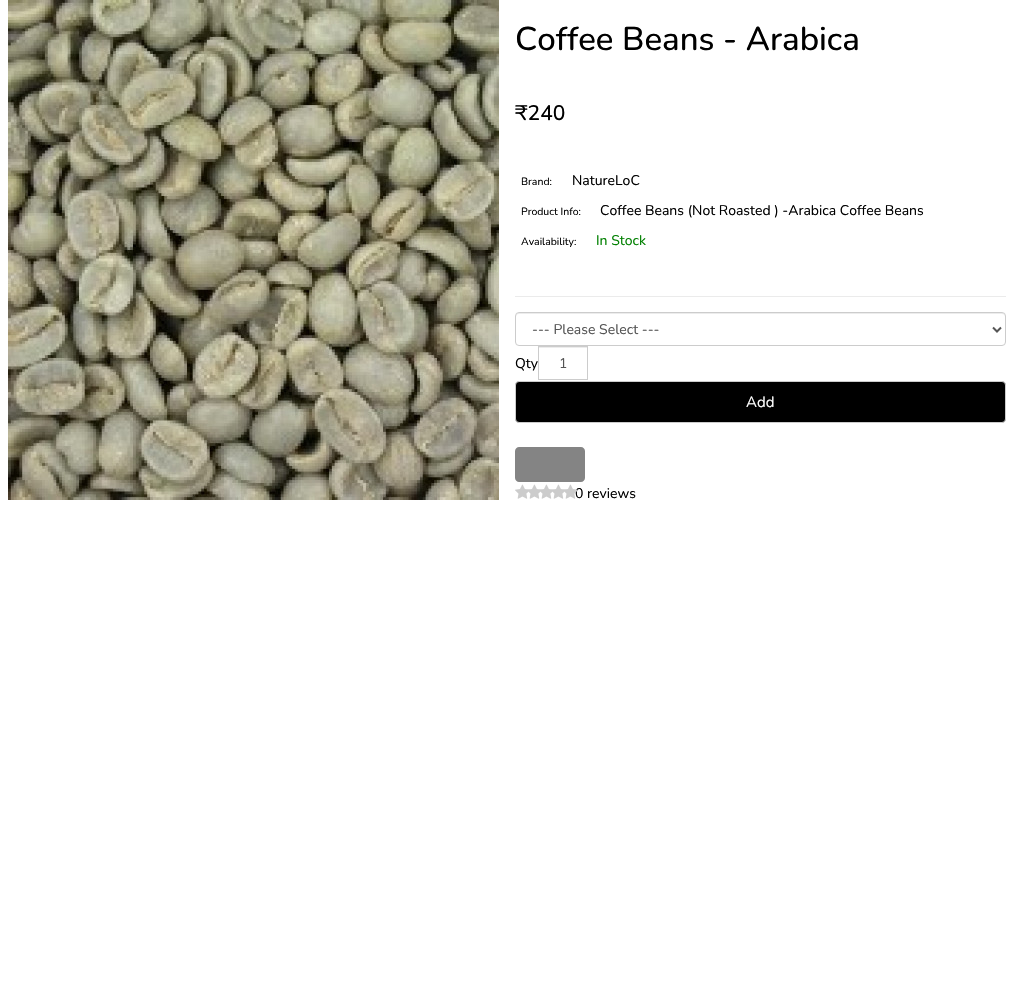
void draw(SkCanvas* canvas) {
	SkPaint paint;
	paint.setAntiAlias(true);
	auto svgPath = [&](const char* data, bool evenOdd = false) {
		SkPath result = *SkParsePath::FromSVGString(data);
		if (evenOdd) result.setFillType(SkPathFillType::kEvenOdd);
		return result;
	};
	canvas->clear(0xffffffff);
	canvas->drawImageRect(SkImages::DeferredFromEncodedData(SkData::MakeFromFileName("img1.png")), SkRect::MakeXYWH(8, 0, 491, 500), SkSamplingOptions());
	SkFont f1(fontMgr->matchFamilyStyle("Nunito", SkFontStyle(500, SkFontStyle::kNormal_Width, SkFontStyle::kUpright_Slant)), 33);
	f1.setSubpixel(true);
	paint.setColor(0xff000000);
	canvas->drawString("Coffee Beans - Arabica", 515, 50, f1, paint);
	SkFont f2(fontMgr->matchFamilyStyle("Nunito", SkFontStyle(500, SkFontStyle::kNormal_Width, SkFontStyle::kUpright_Slant)), 21);
	f2.setSubpixel(true);
	canvas->drawString("₹240", 515, 120, f2, paint);
	SkFont f3(fontMgr->matchFamilyStyle("Nunito", SkFontStyle::Normal()), 10.5);
	f3.setSubpixel(true);
	canvas->drawString("Brand:", 521, 185, f3, paint);
	SkFont f4(fontMgr->matchFamilyStyle("Nunito", SkFontStyle::Normal()), 14);
	f4.setSubpixel(true);
	canvas->drawString("NatureLoC", 572, 185, f4, paint);
	canvas->drawString("Product Info:", 521, 215, f3, paint);
	canvas->drawString("Coffee Beans (Not Roasted ) -Arabica Coffee Beans", 600, 215, f4, paint);
	canvas->drawString("Availability:", 521, 245, f3, paint);
	paint.setColor(0xff008000);
	canvas->drawString("In Stock", 596, 245, f4, paint);
	paint.setColor(0xffebebeb);
	canvas->drawRect(SkRect::MakeXYWH(515, 296, 491, 1), paint);
	paint.setColor(0xffececec);
	canvas->drawPath(svgPath("M519 314H1002C1004 314 1005 315 1005 317V316C1005 314 1004 313 1002 313H519C517 313 516 314 516 316V317C516 315 517 314 519 314Z"), paint);
	paint.setStroke(true);
	paint.setStrokeWidth(1);
	paint.setColor(0xffcccccc);
	canvas->drawRoundRect(SkRect::MakeXYWH(515.5, 312.5, 490, 33), 3.5, 3.5, paint);
	paint.setStrokeWidth(2);
	paint.setColor(0xff555555);
	canvas->drawPath(svgPath("M993 327.5L997 331.5L1001 327.5"), paint);
	paint.setStroke(false);
	canvas->drawString("--- Please Select ---", 532, 334, f4, paint);
	paint.setColor(0xff000000);
	canvas->drawString("Qty", 515, 368, f4, paint);
	paint.setColor(0xffececec);
	canvas->drawRect(SkRect::MakeXYWH(539, 347, 48, 1), paint);
	paint.setStroke(true);
	paint.setStrokeWidth(1);
	paint.setColor(0xffcccccc);
	canvas->drawRect(SkRect::MakeXYWH(538.5, 346.5, 49, 33), paint);
	paint.setStroke(false);
	paint.setColor(0xff555555);
	canvas->drawString("1", 559, 368, f4, paint);
	paint.setColor(0xff000000);
	canvas->drawRoundRect(SkRect::MakeXYWH(515.5, 381.5, 490, 41), 3.5, 3.5, paint);
	paint.setStroke(true);
	paint.setColor(0xffcccccc);
	canvas->drawRoundRect(SkRect::MakeXYWH(515.5, 381.5, 490, 41), 3.5, 3.5, paint);
	SkFont f5(fontMgr->matchFamilyStyle("Nunito", SkFontStyle::Normal()), 15);
	f5.setSubpixel(true);
	paint.setStroke(false);
	paint.setColor(0xffffffff);
	canvas->drawString("Add", 746, 407, f5, paint);
	paint.setColor(0xff848484);
	canvas->drawPath(svgPath("M519 447H550V482H519C517 482 515 480 515 478V451C515 449 517 447 519 447Z"), paint);
	canvas->drawPath(svgPath("M550 447H581C583 447 585 449 585 451V478C585 480 583 482 581 482H550Z"), paint);
	canvas->drawImageRect(SkImages::DeferredFromEncodedData(SkData::MakeFromFileName("img2.png")), SkRect::MakeXYWH(515, 484, 15, 15), SkSamplingOptions());
	canvas->drawImageRect(SkImages::DeferredFromEncodedData(SkData::MakeFromFileName("img3.png")), SkRect::MakeXYWH(527, 484, 15, 15), SkSamplingOptions());
	canvas->drawImageRect(SkImages::DeferredFromEncodedData(SkData::MakeFromFileName("img3.png")), SkRect::MakeXYWH(539, 484, 15, 15), SkSamplingOptions());
	canvas->drawImageRect(SkImages::DeferredFromEncodedData(SkData::MakeFromFileName("img3.png")), SkRect::MakeXYWH(551, 484, 15, 15), SkSamplingOptions());
	paint.setColor(0xff000000);
	canvas->drawString("0 reviews", 575, 498, f4, paint);
	canvas->drawImageRect(SkImages::DeferredFromEncodedData(SkData::MakeFromFileName("img4.png")), SkRect::MakeXYWH(563, 484, 15, 15), SkSamplingOptions());
}
